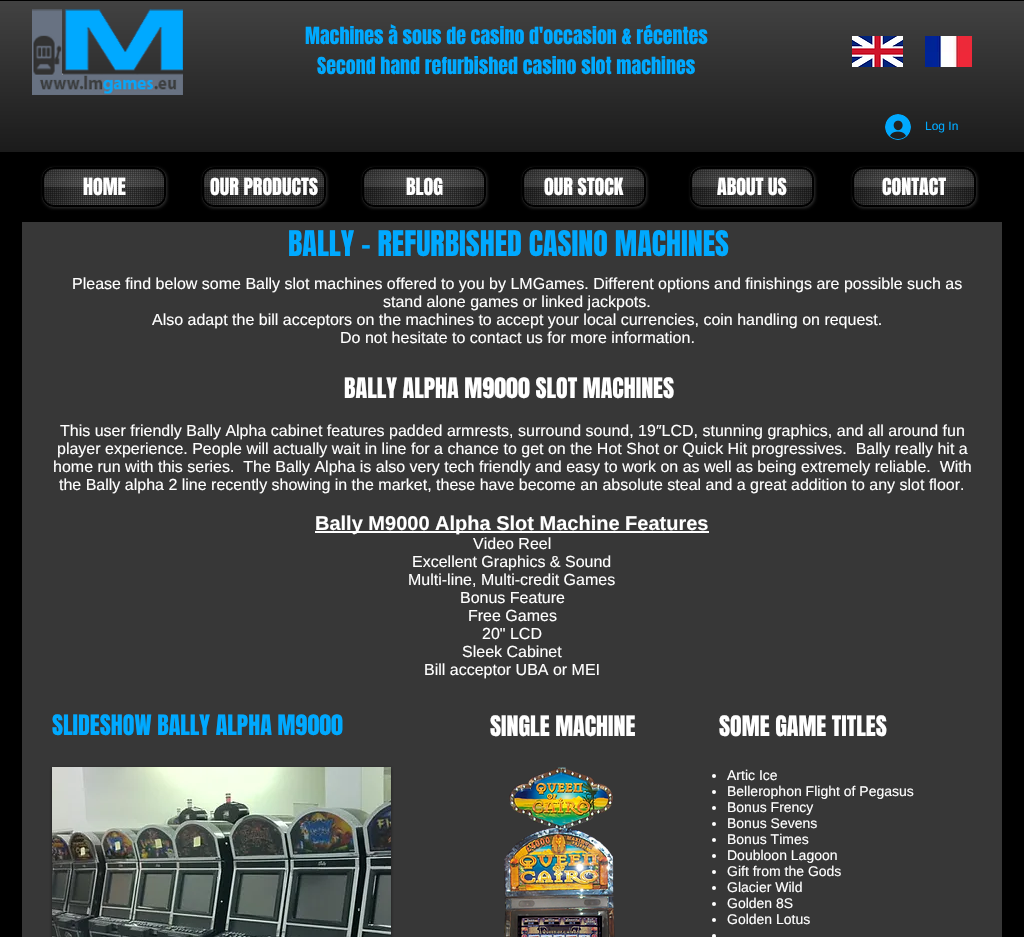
void draw(SkCanvas* canvas) {
	SkPaint paint;
	paint.setAntiAlias(true);
	canvas->clear(0xff000000);
	canvas->drawImageRect(SkImages::DeferredFromEncodedData(SkData::MakeFromFileName("img1.png")), SkRect::MakeXYWH(0, 1, 1024, 151), SkSamplingOptions());
	canvas->drawImageRect(SkImages::DeferredFromEncodedData(SkData::MakeFromFileName("img2.png")), SkRect::MakeXYWH(32, 9, 151, 86), SkSamplingOptions());
	SkFont f1(fontMgr->matchFamilyStyle("Anton", SkFontStyle::Normal()), 20);
	f1.setSubpixel(true);
	paint.setColor(0xff00a9ff);
	canvas->drawString("Machines à sous de casino d'occasion & récentes", 305, 44, f1, paint);
	canvas->drawString("Second hand refurbished casino slot machines", 317, 74, f1, paint);
	canvas->drawImageRect(SkImages::DeferredFromEncodedData(SkData::MakeFromFileName("img3.png")), SkRect::MakeXYWH(852, 36, 51, 31), SkSamplingOptions());
	canvas->drawImageRect(SkImages::DeferredFromEncodedData(SkData::MakeFromFileName("img4.png")), SkRect::MakeXYWH(925, 36, 47, 31), SkSamplingOptions());
	canvas->drawImageRect(SkImages::DeferredFromEncodedData(SkData::MakeFromFileName("img5.png")), SkRect::MakeXYWH(885, 114, 26, 26), SkSamplingOptions());
	SkFont f2(fontMgr->matchFamilyStyle("Liberation Sans", SkFontStyle::Normal()), 12);
	f2.setSubpixel(true);
	canvas->drawString("Log In", 925, 130, f2, paint);
	paint.setColor(0x4dffffff);
	paint.setMaskFilter(SkMaskFilter::MakeBlur(kNormal_SkBlurStyle, 1.5));
	canvas->drawRoundRect(SkRect::MakeXYWH(43, 168, 124, 40), 12, 12, paint);
	paint.setMaskFilter(nullptr);
	paint.setColor(0x99000000);
	paint.setMaskFilter(SkMaskFilter::MakeBlur(kNormal_SkBlurStyle, 3));
	canvas->drawRoundRect(SkRect::MakeXYWH(42, 167, 126, 42), 13, 13, paint);
	paint.setMaskFilter(nullptr);
	paint.setColor(0xff4e4e4e);
	canvas->drawRoundRect(SkRect::MakeXYWH(42, 167, 124, 40), 12, 12, paint);
	canvas->drawImageRect(SkImages::DeferredFromEncodedData(SkData::MakeFromFileName("img6.png")), SkRect::MakeXYWH(42, 167, 124, 40), SkSamplingOptions());
	paint.setStroke(true);
	paint.setStrokeWidth(2);
	paint.setColor(0xff000000);
	canvas->drawRoundRect(SkRect::MakeXYWH(43, 168, 122, 38), 11, 11, paint);
	canvas->drawImageRect(SkImages::DeferredFromEncodedData(SkData::MakeFromFileName("img7.png")), SkRect::MakeXYWH(44, 169, 40, 36), SkSamplingOptions());
	canvas->drawImageRect(SkImages::DeferredFromEncodedData(SkData::MakeFromFileName("img9.png")), SkRect::MakeXYWH(125, 169, 39, 36), SkSamplingOptions());
	paint.setStroke(false);
	paint.setColor(0xffffffff);
	canvas->drawString("HOME", 83, 195, f1, paint);
	canvas->drawImageRect(SkImages::DeferredFromEncodedData(SkData::MakeFromFileName("img8.png")), SkRect::MakeXYWH(44, 169, 120, 18), SkSamplingOptions());
	paint.setColor(0x4dffffff);
	paint.setMaskFilter(SkMaskFilter::MakeBlur(kNormal_SkBlurStyle, 1.5));
	canvas->drawRoundRect(SkRect::MakeXYWH(203, 168, 124, 40), 12, 12, paint);
	paint.setMaskFilter(nullptr);
	paint.setColor(0x99000000);
	paint.setMaskFilter(SkMaskFilter::MakeBlur(kNormal_SkBlurStyle, 3));
	canvas->drawRoundRect(SkRect::MakeXYWH(202, 167, 126, 42), 13, 13, paint);
	paint.setMaskFilter(nullptr);
	paint.setColor(0xff4e4e4e);
	canvas->drawRoundRect(SkRect::MakeXYWH(202, 167, 124, 40), 12, 12, paint);
	canvas->drawImageRect(SkImages::DeferredFromEncodedData(SkData::MakeFromFileName("img10.png")), SkRect::MakeXYWH(202, 167, 124, 40), SkSamplingOptions());
	paint.setStroke(true);
	paint.setColor(0xff000000);
	canvas->drawRoundRect(SkRect::MakeXYWH(203, 168, 122, 38), 11, 11, paint);
	canvas->drawImageRect(SkImages::DeferredFromEncodedData(SkData::MakeFromFileName("img11.png")), SkRect::MakeXYWH(204, 169, 40, 36), SkSamplingOptions());
	canvas->drawImageRect(SkImages::DeferredFromEncodedData(SkData::MakeFromFileName("img9.png")), SkRect::MakeXYWH(285, 169, 39, 36), SkSamplingOptions());
	paint.setStroke(false);
	paint.setColor(0xffffffff);
	canvas->drawString("OUR PRODUCTS", 210, 195, f1, paint);
	canvas->drawImageRect(SkImages::DeferredFromEncodedData(SkData::MakeFromFileName("img12.png")), SkRect::MakeXYWH(204, 169, 120, 18), SkSamplingOptions());
	paint.setColor(0x4dffffff);
	paint.setMaskFilter(SkMaskFilter::MakeBlur(kNormal_SkBlurStyle, 1.5));
	canvas->drawRoundRect(SkRect::MakeXYWH(363, 168, 124, 40), 12, 12, paint);
	paint.setMaskFilter(nullptr);
	paint.setColor(0x99000000);
	paint.setMaskFilter(SkMaskFilter::MakeBlur(kNormal_SkBlurStyle, 3));
	canvas->drawRoundRect(SkRect::MakeXYWH(362, 167, 126, 42), 13, 13, paint);
	paint.setMaskFilter(nullptr);
	paint.setColor(0xff4e4e4e);
	canvas->drawRoundRect(SkRect::MakeXYWH(362, 167, 124, 40), 12, 12, paint);
	canvas->drawImageRect(SkImages::DeferredFromEncodedData(SkData::MakeFromFileName("img10.png")), SkRect::MakeXYWH(362, 167, 124, 40), SkSamplingOptions());
	paint.setStroke(true);
	paint.setColor(0xff000000);
	canvas->drawRoundRect(SkRect::MakeXYWH(363, 168, 122, 38), 11, 11, paint);
	canvas->drawImageRect(SkImages::DeferredFromEncodedData(SkData::MakeFromFileName("img11.png")), SkRect::MakeXYWH(364, 169, 40, 36), SkSamplingOptions());
	paint.setStroke(false);
	paint.setColor(0xffffffff);
	canvas->drawString("BLOG", 406, 195, f1, paint);
	canvas->drawImageRect(SkImages::DeferredFromEncodedData(SkData::MakeFromFileName("img9.png")), SkRect::MakeXYWH(445, 169, 39, 36), SkSamplingOptions());
	canvas->drawImageRect(SkImages::DeferredFromEncodedData(SkData::MakeFromFileName("img13.png")), SkRect::MakeXYWH(364, 169, 120, 18), SkSamplingOptions());
	paint.setColor(0x4dffffff);
	paint.setMaskFilter(SkMaskFilter::MakeBlur(kNormal_SkBlurStyle, 1.5));
	canvas->drawRoundRect(SkRect::MakeXYWH(523, 168, 124, 40), 12, 12, paint);
	paint.setMaskFilter(nullptr);
	paint.setColor(0x99000000);
	paint.setMaskFilter(SkMaskFilter::MakeBlur(kNormal_SkBlurStyle, 3));
	canvas->drawRoundRect(SkRect::MakeXYWH(522, 167, 126, 42), 13, 13, paint);
	paint.setMaskFilter(nullptr);
	paint.setColor(0xff4e4e4e);
	canvas->drawRoundRect(SkRect::MakeXYWH(522, 167, 124, 40), 12, 12, paint);
	canvas->drawImageRect(SkImages::DeferredFromEncodedData(SkData::MakeFromFileName("img10.png")), SkRect::MakeXYWH(522, 167, 124, 40), SkSamplingOptions());
	paint.setStroke(true);
	paint.setColor(0xff000000);
	canvas->drawRoundRect(SkRect::MakeXYWH(523, 168, 122, 38), 11, 11, paint);
	canvas->drawImageRect(SkImages::DeferredFromEncodedData(SkData::MakeFromFileName("img11.png")), SkRect::MakeXYWH(524, 169, 40, 36), SkSamplingOptions());
	canvas->drawImageRect(SkImages::DeferredFromEncodedData(SkData::MakeFromFileName("img9.png")), SkRect::MakeXYWH(605, 169, 39, 36), SkSamplingOptions());
	paint.setStroke(false);
	paint.setColor(0xffffffff);
	canvas->drawString("OUR STOCK", 544, 195, f1, paint);
	canvas->drawImageRect(SkImages::DeferredFromEncodedData(SkData::MakeFromFileName("img14.png")), SkRect::MakeXYWH(524, 169, 120, 18), SkSamplingOptions());
	paint.setColor(0x4dffffff);
	paint.setMaskFilter(SkMaskFilter::MakeBlur(kNormal_SkBlurStyle, 1.5));
	canvas->drawRoundRect(SkRect::MakeXYWH(691, 168, 124, 40), 12, 12, paint);
	paint.setMaskFilter(nullptr);
	paint.setColor(0x99000000);
	paint.setMaskFilter(SkMaskFilter::MakeBlur(kNormal_SkBlurStyle, 3));
	canvas->drawRoundRect(SkRect::MakeXYWH(690, 167, 126, 42), 13, 13, paint);
	paint.setMaskFilter(nullptr);
	paint.setColor(0xff4e4e4e);
	canvas->drawRoundRect(SkRect::MakeXYWH(690, 167, 124, 40), 12, 12, paint);
	canvas->drawImageRect(SkImages::DeferredFromEncodedData(SkData::MakeFromFileName("img10.png")), SkRect::MakeXYWH(690, 167, 124, 40), SkSamplingOptions());
	paint.setStroke(true);
	paint.setColor(0xff000000);
	canvas->drawRoundRect(SkRect::MakeXYWH(691, 168, 122, 38), 11, 11, paint);
	canvas->drawImageRect(SkImages::DeferredFromEncodedData(SkData::MakeFromFileName("img7.png")), SkRect::MakeXYWH(692, 169, 40, 36), SkSamplingOptions());
	canvas->drawImageRect(SkImages::DeferredFromEncodedData(SkData::MakeFromFileName("img9.png")), SkRect::MakeXYWH(773, 169, 39, 36), SkSamplingOptions());
	paint.setStroke(false);
	paint.setColor(0xffffffff);
	canvas->drawString("ABOUT US", 717, 195, f1, paint);
	canvas->drawImageRect(SkImages::DeferredFromEncodedData(SkData::MakeFromFileName("img15.png")), SkRect::MakeXYWH(692, 169, 120, 18), SkSamplingOptions());
	paint.setColor(0x4dffffff);
	paint.setMaskFilter(SkMaskFilter::MakeBlur(kNormal_SkBlurStyle, 1.5));
	canvas->drawRoundRect(SkRect::MakeXYWH(853, 168, 124, 40), 12, 12, paint);
	paint.setMaskFilter(nullptr);
	paint.setColor(0x99000000);
	paint.setMaskFilter(SkMaskFilter::MakeBlur(kNormal_SkBlurStyle, 3));
	canvas->drawRoundRect(SkRect::MakeXYWH(852, 167, 126, 42), 13, 13, paint);
	paint.setMaskFilter(nullptr);
	paint.setColor(0xff4e4e4e);
	canvas->drawRoundRect(SkRect::MakeXYWH(852, 167, 124, 40), 12, 12, paint);
	canvas->drawImageRect(SkImages::DeferredFromEncodedData(SkData::MakeFromFileName("img6.png")), SkRect::MakeXYWH(852, 167, 124, 40), SkSamplingOptions());
	paint.setStroke(true);
	paint.setColor(0xff000000);
	canvas->drawRoundRect(SkRect::MakeXYWH(853, 168, 122, 38), 11, 11, paint);
	canvas->drawImageRect(SkImages::DeferredFromEncodedData(SkData::MakeFromFileName("img7.png")), SkRect::MakeXYWH(854, 169, 40, 36), SkSamplingOptions());
	canvas->drawImageRect(SkImages::DeferredFromEncodedData(SkData::MakeFromFileName("img9.png")), SkRect::MakeXYWH(935, 169, 39, 36), SkSamplingOptions());
	paint.setStroke(false);
	paint.setColor(0xffffffff);
	canvas->drawString("CONTACT", 882, 195, f1, paint);
	canvas->drawImageRect(SkImages::DeferredFromEncodedData(SkData::MakeFromFileName("img16.png")), SkRect::MakeXYWH(854, 169, 120, 18), SkSamplingOptions());
	paint.setColor(0xff373737);
	canvas->drawRect(SkRect::MakeXYWH(22, 222, 980, 715), paint);
	SkFont f3(fontMgr->matchFamilyStyle("Anton", SkFontStyle::Normal()), 30);
	f3.setSubpixel(true);
	paint.setColor(0xff00a9ff);
	canvas->drawString("BALLY - REFURBISHED CASINO MACHINES", 288, 256, f3, paint);
	SkFont f4(fontMgr->matchFamilyStyle("Liberation Sans", SkFontStyle::Normal()), 16);
	f4.setSubpixel(true);
	paint.setColor(0xffffffff);
	canvas->drawString("Please find below some Bally slot machines offered to you by LMGames. Different options and finishings are possible such as", 72, 289, f4, paint);
	canvas->drawString("stand alone games or linked jackpots.", 383, 307, f4, paint);
	canvas->drawString("Also adapt the bill acceptors on the machines to accept your local currencies, coin handling on request.", 152, 325, f4, paint);
	canvas->drawString("Do not hesitate to contact us for more information.", 340, 343, f4, paint);
	SkFont f5(fontMgr->matchFamilyStyle("Anton", SkFontStyle::Normal()), 24);
	f5.setSubpixel(true);
	canvas->drawString("BALLY ALPHA M9000 SLOT MACHINES", 344, 398, f5, paint);
	canvas->drawString("This user friendly Bally Alpha cabinet features padded armrests, surround sound, 19″LCD, stunning graphics, and all around fun", 60, 436, f4, paint);
	canvas->drawString("player experience. People will actually wait in line for a chance to get on the Hot Shot or Quick Hit progressives.  Bally really hit a", 57, 454, f4, paint);
	canvas->drawString("home run with this series.  The Bally Alpha is also very tech friendly and easy to work on as well as being extremely reliable.  With", 53, 472, f4, paint);
	canvas->drawString("the Bally alpha 2 line recently showing in the market, these have become an absolute steal and a great addition to any slot floor.", 59, 490, f4, paint);
	canvas->drawRect(SkRect::MakeXYWH(315, 531, 394, 2), paint);
	SkFont f6(fontMgr->matchFamilyStyle("Liberation Sans", SkFontStyle::Bold()), 20);
	f6.setSubpixel(true);
	canvas->drawString("Bally M9000 Alpha Slot Machine Features", 315, 530, f6, paint);
	canvas->drawString("Video Reel", 473, 549, f4, paint);
	canvas->drawString("Excellent Graphics & Sound", 412, 567, f4, paint);
	canvas->drawString("Multi-line, Multi-credit Games", 408, 585, f4, paint);
	canvas->drawString("Bonus Feature", 460, 603, f4, paint);
	canvas->drawString("Free Games", 468, 621, f4, paint);
	canvas->drawString("20\" LCD", 482, 639, f4, paint);
	canvas->drawString("Sleek Cabinet", 462, 657, f4, paint);
	canvas->drawString("Bill acceptor UBA or MEI", 424, 675, f4, paint);
	paint.setColor(0xff00a9ff);
	canvas->drawString("SLIDESHOW BALLY ALPHA M9000", 52, 735, f5, paint);
	paint.setColor(0xffffffff);
	canvas->drawString("SINGLE MACHINE", 490, 736, f5, paint);
	canvas->drawString("SOME GAME TITLES", 719, 736, f5, paint);
	paint.setColor(0x80000000);
	paint.setMaskFilter(SkMaskFilter::MakeBlur(kNormal_SkBlurStyle, 1.5));
	canvas->drawRect(SkRect::MakeXYWH(52, 768, 339, 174), paint);
	paint.setMaskFilter(nullptr);
	canvas->drawImageRect(SkImages::DeferredFromEncodedData(SkData::MakeFromFileName("img17.png")), SkRect::MakeXYWH(52, 767, 339, 170), SkSamplingOptions());
	canvas->drawImageRect(SkImages::DeferredFromEncodedData(SkData::MakeFromFileName("img18.png")), SkRect::MakeXYWH(504, 767, 111, 170), SkSamplingOptions());
	paint.setColor(0xffffffff);
	canvas->drawCircle(714, 776, 2, paint);
	SkFont f7(fontMgr->matchFamilyStyle("Liberation Sans", SkFontStyle::Normal()), 14);
	f7.setSubpixel(true);
	canvas->drawString("Artic Ice", 727, 780, f7, paint);
	canvas->drawCircle(714, 792, 2, paint);
	canvas->drawString("Bellerophon Flight of Pegasus", 727, 796, f7, paint);
	canvas->drawCircle(714, 808, 2, paint);
	canvas->drawString("Bonus Frency", 727, 812, f7, paint);
	canvas->drawCircle(714, 824, 2, paint);
	canvas->drawString("Bonus Sevens", 727, 828, f7, paint);
	canvas->drawCircle(714, 840, 2, paint);
	canvas->drawString("Bonus Times", 727, 844, f7, paint);
	canvas->drawCircle(714, 856, 2, paint);
	canvas->drawString("Doubloon Lagoon", 727, 860, f7, paint);
	canvas->drawCircle(714, 872, 2, paint);
	canvas->drawString("Gift from the Gods", 727, 876, f7, paint);
	canvas->drawCircle(714, 888, 2, paint);
	canvas->drawString("Glacier Wild", 727, 892, f7, paint);
	canvas->drawCircle(714, 904, 2, paint);
	canvas->drawString("Golden 8S", 727, 908, f7, paint);
	canvas->drawCircle(714, 920, 2, paint);
	canvas->drawString("Golden Lotus", 727, 924, f7, paint);
	canvas->drawCircle(714, 936, 2, paint);
}
